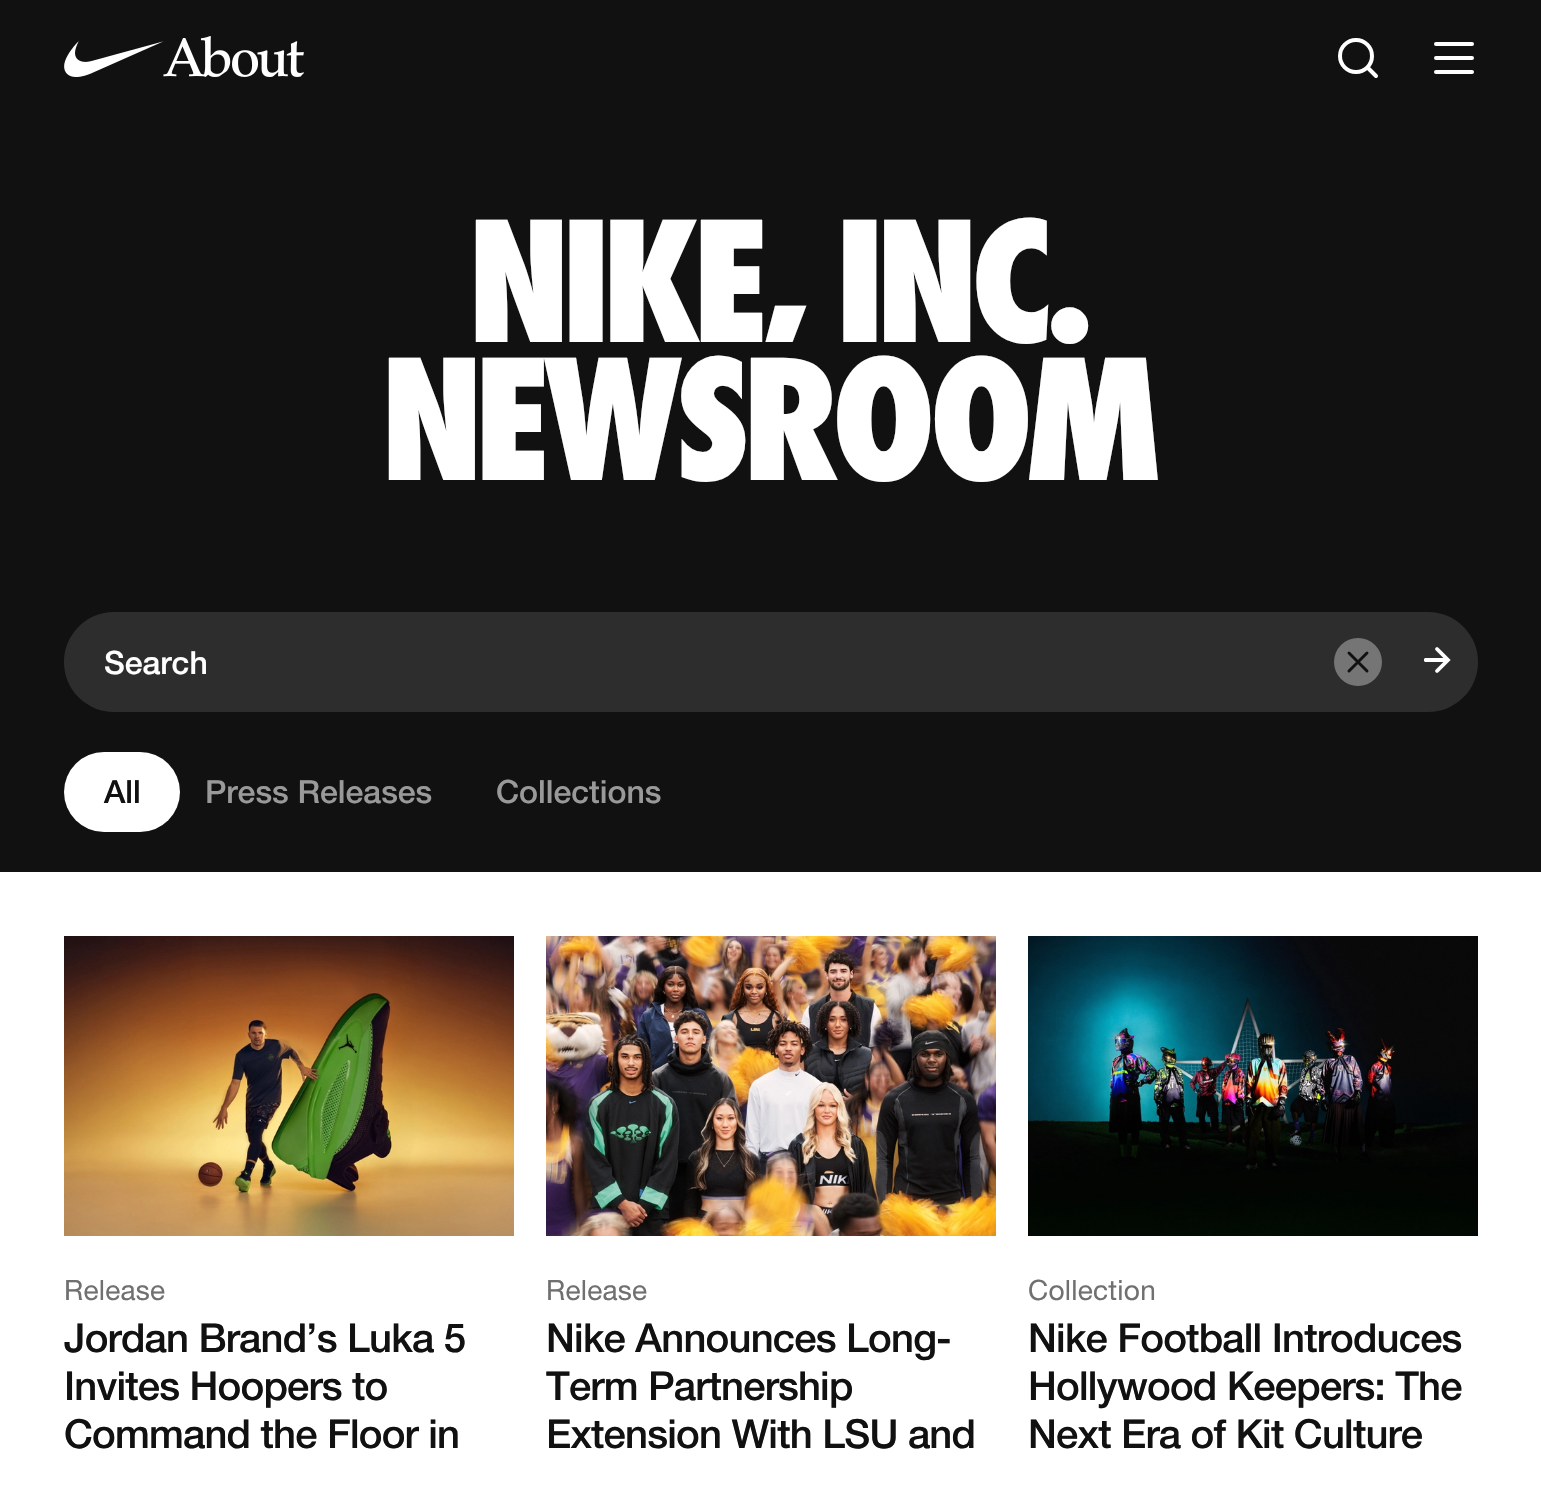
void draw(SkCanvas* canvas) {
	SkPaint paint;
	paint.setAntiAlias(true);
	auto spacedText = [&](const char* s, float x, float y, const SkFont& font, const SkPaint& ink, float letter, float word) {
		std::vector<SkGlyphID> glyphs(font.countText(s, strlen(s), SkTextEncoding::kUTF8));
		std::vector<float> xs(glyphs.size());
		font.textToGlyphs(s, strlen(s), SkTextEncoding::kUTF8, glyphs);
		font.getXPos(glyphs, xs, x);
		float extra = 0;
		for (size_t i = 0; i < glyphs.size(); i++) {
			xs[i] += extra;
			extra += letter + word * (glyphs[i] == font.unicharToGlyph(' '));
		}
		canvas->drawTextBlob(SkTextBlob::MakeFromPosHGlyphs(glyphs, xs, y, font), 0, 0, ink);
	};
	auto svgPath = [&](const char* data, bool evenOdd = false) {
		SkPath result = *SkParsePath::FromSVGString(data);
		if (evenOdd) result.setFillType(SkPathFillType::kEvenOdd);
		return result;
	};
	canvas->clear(0xffffffff);
	paint.setColor(0xff111111);
	canvas->drawRect(SkRect::MakeXYWH(0, 0, 1541, 872), paint);
	canvas->drawImageRect(SkImages::DeferredFromEncodedData(SkData::MakeFromFileName("img1.png")), SkRect::MakeXYWH(64, 36, 240, 41), SkSamplingOptions());
	paint.setStroke(true);
	paint.setStrokeWidth(4);
	paint.setStrokeCap(SkPaint::kRound_Cap);
	paint.setColor(0xffffffff);
	canvas->drawPath(svgPath("M1368 68L1376 76"), paint);
	paint.setStrokeCap(SkPaint::kButt_Cap);
	canvas->drawCircle(1356, 56, 16, paint);
	paint.setStroke(false);
	canvas->drawRoundRect(SkRect::MakeXYWH(1434, 42, 40, 4), 2, 2, paint);
	canvas->drawRoundRect(SkRect::MakeXYWH(1434, 56, 40, 4), 2, 2, paint);
	canvas->drawRoundRect(SkRect::MakeXYWH(1434, 70, 40, 4), 2, 2, paint);
	SkFont f1(fontMgr->matchFamilyStyle("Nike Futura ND", SkFontStyle::Bold()), 162);
	f1.setSubpixel(true);
	canvas->drawString("NIKE, INC.", 472, 342, f1, paint);
	canvas->drawString("NEWSROOM", 385, 480, f1, paint);
	paint.setColor(0xff2d2d2d);
	canvas->drawRoundRect(SkRect::MakeXYWH(64, 612, 1414, 100), 50, 50, paint);
	SkFont f2(fontMgr->matchFamilyStyle("Helvetica Neue", SkFontStyle(500, SkFontStyle::kNormal_Width, SkFontStyle::kUpright_Slant)), 32);
	f2.setSubpixel(true);
	paint.setColor(0xffffffff);
	canvas->drawString("Search", 104, 674, f2, paint);
	paint.setColor(0xff757575);
	canvas->drawCircle(1358, 662, 24, paint);
	paint.setStroke(true);
	paint.setStrokeWidth(3);
	paint.setStrokeCap(SkPaint::kRound_Cap);
	paint.setColor(0xff111111);
	canvas->drawPath(svgPath("M1367 653L1349 671M1349 653L1367 671"), paint);
	canvas->drawImageRect(SkImages::DeferredFromEncodedData(SkData::MakeFromFileName("img2.png")), SkRect::MakeXYWH(1424, 647, 27, 26), SkSamplingOptions());
	paint.setStroke(false);
	paint.setColor(0xffffffff);
	canvas->drawRoundRect(SkRect::MakeXYWH(64, 752, 116, 80), 40, 40, paint);
	paint.setColor(0xff111111);
	canvas->drawString("All", 104, 803, f2, paint);
	paint.setColor(0xff999999);
	canvas->drawString("Press Releases", 205, 803, f2, paint);
	canvas->drawString("Collections", 496, 803, f2, paint);
	canvas->drawImageRect(SkImages::DeferredFromEncodedData(SkData::MakeFromFileName("img3.png")), SkRect::MakeXYWH(64, 936, 450, 300), SkSamplingOptions());
	SkFont f3(fontMgr->matchFamilyStyle("Helvetica Neue", SkFontStyle::Normal()), 28);
	f3.setSubpixel(true);
	paint.setColor(0xff707070);
	spacedText("Release", 64, 1300, f3, paint, 0.25, 0);
	SkFont f4(fontMgr->matchFamilyStyle("Helvetica Neue", SkFontStyle(500, SkFontStyle::kNormal_Width, SkFontStyle::kUpright_Slant)), 40);
	f4.setSubpixel(true);
	paint.setColor(0xff111111);
	spacedText("Jordan Brand’s Luka 5", 64, 1352, f4, paint, -0.8, 0);
	spacedText("Invites Hoopers to", 64, 1400, f4, paint, -0.8, 0);
	spacedText("Command the Floor in", 64, 1448, f4, paint, -0.8, 0);
	canvas->drawImageRect(SkImages::DeferredFromEncodedData(SkData::MakeFromFileName("img4.png")), SkRect::MakeXYWH(546, 936, 450, 300), SkSamplingOptions());
	paint.setColor(0xff707070);
	spacedText("Release", 546, 1300, f3, paint, 0.25, 0);
	paint.setColor(0xff111111);
	spacedText("Nike Announces Long-", 546, 1352, f4, paint, -0.8, 0);
	spacedText("Term Partnership", 546, 1400, f4, paint, -0.8, 0);
	spacedText("Extension With LSU and", 546, 1448, f4, paint, -0.8, 0);
	canvas->drawImageRect(SkImages::DeferredFromEncodedData(SkData::MakeFromFileName("img5.png")), SkRect::MakeXYWH(1028, 936, 450, 300), SkSamplingOptions());
	paint.setColor(0xff707070);
	spacedText("Collection", 1028, 1300, f3, paint, 0.25, 0);
	paint.setColor(0xff111111);
	spacedText("Nike Football Introduces", 1028, 1352, f4, paint, -0.8, 0);
	spacedText("Hollywood Keepers: The", 1028, 1400, f4, paint, -0.8, 0);
	spacedText("Next Era of Kit Culture", 1028, 1448, f4, paint, -0.8, 0);
}
